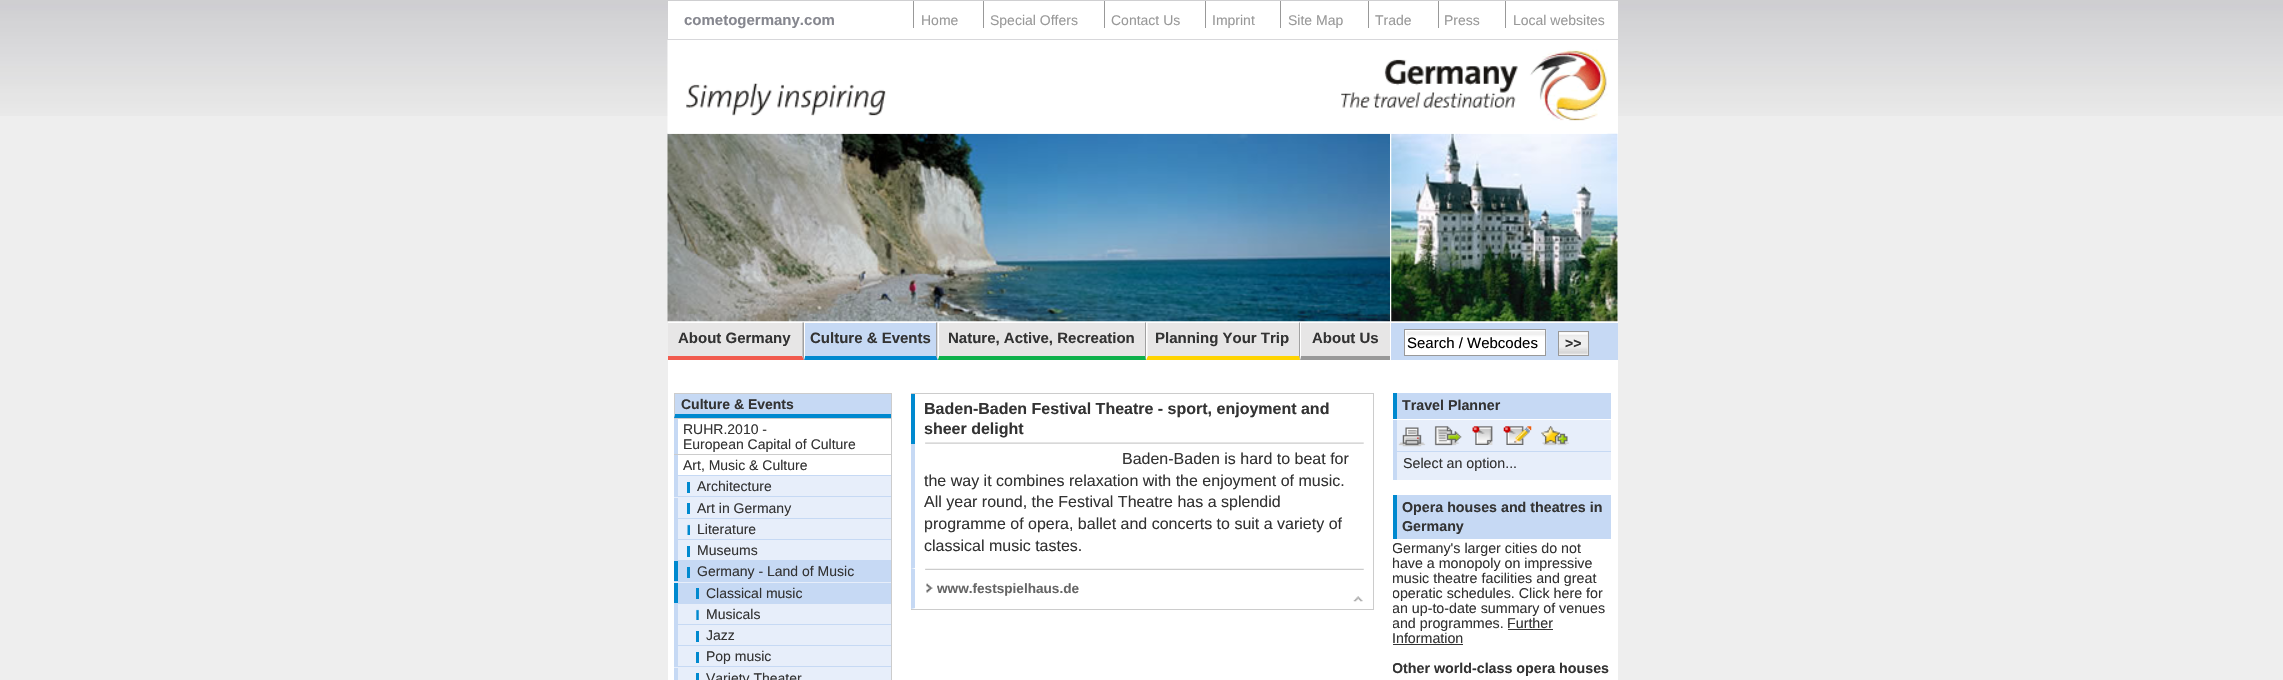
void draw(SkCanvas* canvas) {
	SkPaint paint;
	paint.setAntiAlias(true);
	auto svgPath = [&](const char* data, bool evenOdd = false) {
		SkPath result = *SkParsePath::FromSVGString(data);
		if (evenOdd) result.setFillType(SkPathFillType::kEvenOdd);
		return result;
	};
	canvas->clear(0xffeeeeee);
	canvas->drawImageRect(SkImages::DeferredFromEncodedData(SkData::MakeFromFileName("img1.png")), SkRect::MakeXYWH(0, 0, 2283, 116), SkSamplingOptions());
	paint.setColor(0xffffffff);
	canvas->drawRect(SkRect::MakeXYWH(668, 1, 950, 679), paint);
	paint.setColor(0xffd7d7da);
	canvas->drawRect(SkRect::MakeXYWH(668, 39, 950, 1), paint);
	SkFont f1(fontMgr->matchFamilyStyle("Liberation Sans", SkFontStyle::Bold()), 15);
	f1.setSubpixel(true);
	paint.setColor(0xff86878f);
	canvas->drawString("cometogermany.com", 684, 25, f1, paint);
	paint.setColor(0xff999999);
	canvas->drawRect(SkRect::MakeXYWH(913, 1, 1, 27), paint);
	SkFont f2(fontMgr->matchFamilyStyle("Liberation Sans", SkFontStyle::Normal()), 14);
	f2.setSubpixel(true);
	canvas->drawString("Home", 921, 25, f2, paint);
	canvas->drawRect(SkRect::MakeXYWH(983, 1, 1, 27), paint);
	canvas->drawString("Special Offers", 990, 25, f2, paint);
	canvas->drawRect(SkRect::MakeXYWH(1104, 1, 1, 27), paint);
	canvas->drawString("Contact Us", 1111, 25, f2, paint);
	canvas->drawRect(SkRect::MakeXYWH(1205, 1, 1, 27), paint);
	canvas->drawString("Imprint", 1212, 25, f2, paint);
	canvas->drawRect(SkRect::MakeXYWH(1280, 1, 1, 27), paint);
	canvas->drawString("Site Map", 1288, 25, f2, paint);
	canvas->drawRect(SkRect::MakeXYWH(1368, 1, 1, 27), paint);
	canvas->drawString("Trade", 1375, 25, f2, paint);
	canvas->drawRect(SkRect::MakeXYWH(1438, 1, 1, 27), paint);
	canvas->drawString("Press", 1444, 25, f2, paint);
	canvas->drawRect(SkRect::MakeXYWH(1505, 1, 1, 27), paint);
	canvas->drawString("Local websites", 1513, 25, f2, paint);
	canvas->drawImageRect(SkImages::DeferredFromEncodedData(SkData::MakeFromFileName("img3.png")), SkRect::MakeXYWH(667, 133, 723, 189), SkSamplingOptions());
	canvas->drawImageRect(SkImages::DeferredFromEncodedData(SkData::MakeFromFileName("img4.png")), SkRect::MakeXYWH(1391, 133, 227, 189), SkSamplingOptions());
	canvas->drawImageRect(SkImages::DeferredFromEncodedData(SkData::MakeFromFileName("img2.png")), SkRect::MakeXYWH(667, 40, 941, 94), SkSamplingOptions());
	paint.setColor(0xffe7e6e6);
	canvas->drawRect(SkRect::MakeXYWH(668, 323, 722, 37), paint);
	paint.setColor(0xffa1a1a1);
	canvas->drawPath(svgPath("M804 322.5V360L802.5 356V322.5Z"), paint);
	paint.setColor(0xfff15b4e);
	canvas->drawPath(svgPath("M804 360H668V356H802Z"), paint);
	paint.setColor(0xff333333);
	canvas->drawString("About Germany", 678, 343, f1, paint);
	paint.setColor(0xffa1a1a1);
	canvas->drawPath(svgPath("M937.5 322.5V360L936 356V322.5Z"), paint);
	paint.setColor(0xff0089cf);
	canvas->drawPath(svgPath("M938 360H804L805 356H936Z"), paint);
	paint.setColor(0xffffffff);
	canvas->drawPath(svgPath("M804 360V322.5H805V356Z"), paint);
	paint.setColor(0xffc6d9f4);
	canvas->drawRect(SkRect::MakeXYWH(805, 323, 131, 33), paint);
	paint.setColor(0xff333333);
	canvas->drawString("Culture & Events", 810, 343, f1, paint);
	paint.setColor(0xffa1a1a1);
	canvas->drawPath(svgPath("M1146 322.5V360L1145 356V322.5Z"), paint);
	paint.setColor(0xff0db14b);
	canvas->drawPath(svgPath("M1146 360H938L939 356H1145Z"), paint);
	paint.setColor(0xffffffff);
	canvas->drawPath(svgPath("M937.5 360V322.5H939V356Z"), paint);
	paint.setColor(0xff333333);
	canvas->drawString("Nature, Active, Recreation", 948, 343, f1, paint);
	paint.setColor(0xffa1a1a1);
	canvas->drawPath(svgPath("M1300 322.5V360L1299 356V322.5Z"), paint);
	paint.setColor(0xffffd400);
	canvas->drawPath(svgPath("M1300 360H1146L1148 356H1299Z"), paint);
	paint.setColor(0xffffffff);
	canvas->drawPath(svgPath("M1146 360V322.5H1147.5V356Z"), paint);
	paint.setColor(0xff333333);
	canvas->drawString("Planning Your Trip", 1155, 343, f1, paint);
	paint.setColor(0xff999999);
	canvas->drawPath(svgPath("M1390 360H1300L1301 356H1390Z"), paint);
	paint.setColor(0xffffffff);
	canvas->drawPath(svgPath("M1300 360V322.5H1301V356Z"), paint);
	paint.setColor(0xff333333);
	canvas->drawString("About Us", 1312, 343, f1, paint);
	paint.setColor(0xffc6d9f4);
	canvas->drawRect(SkRect::MakeXYWH(1391, 323, 227, 37), paint);
	paint.setColor(0xffffffff);
	canvas->drawRect(SkRect::MakeXYWH(1405, 330, 140, 25), paint);
	canvas->drawImageRect(SkImages::DeferredFromEncodedData(SkData::MakeFromFileName("img5.png")), SkRect::MakeXYWH(1406, 330, 141, 21), SkSamplingOptions());
	paint.setStroke(true);
	paint.setStrokeWidth(1);
	paint.setColor(0xff999999);
	canvas->drawRect(SkRect::MakeXYWH(1404.5, 329.5, 141, 26), paint);
	SkFont f3(fontMgr->matchFamilyStyle("Liberation Sans", SkFontStyle::Normal()), 15);
	f3.setSubpixel(true);
	paint.setStroke(false);
	paint.setColor(0xff000000);
	canvas->drawString("Search / Webcodes", 1407, 348, f3, paint);
	paint.setColor(0xffefefef);
	canvas->drawRect(SkRect::MakeXYWH(1559, 332, 29, 23), paint);
	canvas->drawImageRect(SkImages::DeferredFromEncodedData(SkData::MakeFromFileName("img6.png")), SkRect::MakeXYWH(1559, 332, 29, 22), SkSamplingOptions());
	paint.setStroke(true);
	paint.setColor(0xff999999);
	canvas->drawRect(SkRect::MakeXYWH(1558.5, 331.5, 30, 24), paint);
	SkFont f4(fontMgr->matchFamilyStyle("Liberation Sans", SkFontStyle::Bold()), 14);
	f4.setSubpixel(true);
	paint.setStroke(false);
	paint.setColor(0xff333333);
	canvas->drawString(">>", 1565, 348, f4, paint);
	paint.setColor(0xffcccccc);
	canvas->drawRect(SkRect::MakeXYWH(891, 393, 1, 287), paint);
	canvas->drawRect(SkRect::MakeXYWH(674, 393, 217, 1), paint);
	paint.setColor(0xffc6d9f4);
	canvas->drawRect(SkRect::MakeXYWH(674, 394, 217, 24), paint);
	paint.setColor(0xff0089cf);
	canvas->drawPath(svgPath("M891 418H674L675 414H891Z"), paint);
	paint.setColor(0xffcccccc);
	canvas->drawPath(svgPath("M674 417.5V394H675V414Z"), paint);
	paint.setColor(0xff333333);
	canvas->drawString("Culture & Events", 681, 409, f4, paint);
	paint.setColor(0xffcccccc);
	canvas->drawRect(SkRect::MakeXYWH(674, 418, 217, 1), paint);
	paint.setColor(0xffc6d9f4);
	canvas->drawRect(SkRect::MakeXYWH(674, 419, 4, 35), paint);
	paint.setColor(0xff333333);
	canvas->drawString("RUHR.2010 -", 683, 434, f2, paint);
	canvas->drawString("European Capital of Culture", 683, 449, f2, paint);
	paint.setColor(0xffcccccc);
	canvas->drawRect(SkRect::MakeXYWH(674, 454, 217, 1), paint);
	paint.setColor(0xffc6d9f4);
	canvas->drawRect(SkRect::MakeXYWH(674, 455, 4, 20), paint);
	paint.setColor(0xff333333);
	canvas->drawString("Art, Music & Culture", 683, 470, f2, paint);
	paint.setColor(0xffe7eefa);
	canvas->drawRect(SkRect::MakeXYWH(674, 476, 217, 204), paint);
	paint.setColor(0xffc6d9f4);
	canvas->drawRect(SkRect::MakeXYWH(674, 475, 217, 1), paint);
	paint.setColor(0xff0089cf);
	canvas->drawRect(SkRect::MakeXYWH(687, 482, 3, 11), paint);
	paint.setColor(0xffc6d9f4);
	canvas->drawRect(SkRect::MakeXYWH(674, 476, 4, 20), paint);
	paint.setColor(0xff333333);
	canvas->drawString("Architecture", 697, 491, f2, paint);
	paint.setColor(0xffc6d9f4);
	canvas->drawRect(SkRect::MakeXYWH(674, 496, 217, 1), paint);
	paint.setColor(0xff0089cf);
	canvas->drawRect(SkRect::MakeXYWH(687, 503, 3, 11), paint);
	paint.setColor(0xffc6d9f4);
	canvas->drawRect(SkRect::MakeXYWH(674, 498, 4, 20), paint);
	paint.setColor(0xff333333);
	canvas->drawString("Art in Germany", 697, 513, f2, paint);
	paint.setColor(0xffc6d9f4);
	canvas->drawRect(SkRect::MakeXYWH(674, 518, 217, 1), paint);
	canvas->drawImageRect(SkImages::DeferredFromEncodedData(SkData::MakeFromFileName("img7.png")), SkRect::MakeXYWH(687, 524, 3, 11), SkSamplingOptions());
	canvas->drawRect(SkRect::MakeXYWH(674, 519, 4, 20), paint);
	paint.setColor(0xff333333);
	canvas->drawString("Literature", 697, 534, f2, paint);
	paint.setColor(0xffc6d9f4);
	canvas->drawRect(SkRect::MakeXYWH(674, 539, 217, 1), paint);
	paint.setColor(0xff0089cf);
	canvas->drawRect(SkRect::MakeXYWH(687, 546, 3, 11), paint);
	paint.setColor(0xffc6d9f4);
	canvas->drawRect(SkRect::MakeXYWH(674, 540, 4, 20), paint);
	paint.setColor(0xff333333);
	canvas->drawString("Museums", 697, 555, f2, paint);
	paint.setColor(0xffc6d9f4);
	canvas->drawRect(SkRect::MakeXYWH(674, 560, 217, 1), paint);
	canvas->drawRect(SkRect::MakeXYWH(678, 561, 213, 20), paint);
	paint.setColor(0xff0089cf);
	canvas->drawRect(SkRect::MakeXYWH(687, 567, 3, 11), paint);
	canvas->drawRect(SkRect::MakeXYWH(674, 561, 4, 20), paint);
	paint.setColor(0xff333333);
	canvas->drawString("Germany - Land of Music", 697, 576, f2, paint);
	paint.setColor(0xffc6d9f4);
	canvas->drawRect(SkRect::MakeXYWH(674, 581, 217, 1), paint);
	canvas->drawRect(SkRect::MakeXYWH(678, 583, 213, 20), paint);
	paint.setColor(0xff0089cf);
	canvas->drawRect(SkRect::MakeXYWH(696, 588, 3, 11), paint);
	canvas->drawRect(SkRect::MakeXYWH(674, 583, 4, 20), paint);
	paint.setColor(0xff333333);
	canvas->drawString("Classical music", 706, 598, f2, paint);
	paint.setColor(0xffc6d9f4);
	canvas->drawRect(SkRect::MakeXYWH(674, 603, 217, 1), paint);
	canvas->drawImageRect(SkImages::DeferredFromEncodedData(SkData::MakeFromFileName("img8.png")), SkRect::MakeXYWH(696, 609, 3, 11), SkSamplingOptions());
	canvas->drawRect(SkRect::MakeXYWH(674, 604, 4, 20), paint);
	paint.setColor(0xff333333);
	canvas->drawString("Musicals", 706, 619, f2, paint);
	paint.setColor(0xffc6d9f4);
	canvas->drawRect(SkRect::MakeXYWH(674, 624, 217, 1), paint);
	paint.setColor(0xff0089cf);
	canvas->drawRect(SkRect::MakeXYWH(696, 631, 3, 11), paint);
	paint.setColor(0xffc6d9f4);
	canvas->drawRect(SkRect::MakeXYWH(674, 625, 4, 20), paint);
	paint.setColor(0xff333333);
	canvas->drawString("Jazz", 706, 640, f2, paint);
	paint.setColor(0xffc6d9f4);
	canvas->drawRect(SkRect::MakeXYWH(674, 645, 217, 1), paint);
	paint.setColor(0xff0089cf);
	canvas->drawRect(SkRect::MakeXYWH(696, 652, 3, 11), paint);
	paint.setColor(0xffc6d9f4);
	canvas->drawRect(SkRect::MakeXYWH(674, 646, 4, 20), paint);
	paint.setColor(0xff333333);
	canvas->drawString("Pop music", 706, 661, f2, paint);
	paint.setColor(0xffc6d9f4);
	canvas->drawRect(SkRect::MakeXYWH(674, 666, 217, 1), paint);
	paint.setColor(0xff0089cf);
	canvas->drawRect(SkRect::MakeXYWH(696, 673, 3, 7), paint);
	paint.setColor(0xffc6d9f4);
	canvas->drawRect(SkRect::MakeXYWH(674, 668, 4, 12), paint);
	paint.setColor(0xff333333);
	canvas->drawString("Variety Theater", 706, 683, f2, paint);
	paint.setColor(0xffcccccc);
	canvas->drawRect(SkRect::MakeXYWH(911, 393, 463, 1), paint);
	canvas->drawRect(SkRect::MakeXYWH(1373, 393, 1, 217), paint);
	canvas->drawRect(SkRect::MakeXYWH(911, 609, 463, 1), paint);
	canvas->drawImageRect(SkImages::DeferredFromEncodedData(SkData::MakeFromFileName("img9.png")), SkRect::MakeXYWH(925, 442, 439, 2), SkSamplingOptions());
	paint.setColor(0xff0089cf);
	canvas->drawRect(SkRect::MakeXYWH(911, 394, 4, 50), paint);
	SkFont f5(fontMgr->matchFamilyStyle("Liberation Sans", SkFontStyle::Bold()), 16);
	f5.setSubpixel(true);
	paint.setColor(0xff333333);
	canvas->drawString("Baden-Baden Festival Theatre - sport, enjoyment and", 924, 414, f5, paint);
	canvas->drawString("sheer delight", 924, 434, f5, paint);
	paint.setColor(0xffc6d9f4);
	canvas->drawPath(svgPath("M911 569V444H915V568Z"), paint);
	SkFont f6(fontMgr->matchFamilyStyle("Liberation Sans", SkFontStyle::Normal()), 16);
	f6.setSubpixel(true);
	paint.setColor(0xff333333);
	canvas->drawString("Baden-Baden is hard to beat for", 1122, 464, f6, paint);
	canvas->drawString("the way it combines relaxation with the enjoyment of music.", 924, 486, f6, paint);
	canvas->drawString("All year round, the Festival Theatre has a splendid", 924, 507, f6, paint);
	canvas->drawString("programme of opera, ballet and concerts to suit a variety of", 924, 529, f6, paint);
	canvas->drawString("classical music tastes.", 924, 551, f6, paint);
	canvas->drawImageRect(SkImages::DeferredFromEncodedData(SkData::MakeFromFileName("img10.png")), SkRect::MakeXYWH(925, 568, 439, 2), SkSamplingOptions());
	paint.setColor(0xffc6d9f4);
	canvas->drawPath(svgPath("M911 609V569H915V608Z"), paint);
	canvas->drawImageRect(SkImages::DeferredFromEncodedData(SkData::MakeFromFileName("img11.png")), SkRect::MakeXYWH(926, 583, 7, 10), SkSamplingOptions());
	SkFont f7(fontMgr->matchFamilyStyle("Liberation Sans", SkFontStyle::Bold()), 13.6);
	f7.setSubpixel(true);
	paint.setColor(0xff666666);
	canvas->drawString("www.festspielhaus.de", 937, 593, f7, paint);
	canvas->drawImageRect(SkImages::DeferredFromEncodedData(SkData::MakeFromFileName("img12.png")), SkRect::MakeXYWH(1353, 596, 10, 6), SkSamplingOptions());
	paint.setColor(0xffc6d9f4);
	canvas->drawRect(SkRect::MakeXYWH(1397, 393, 214, 26), paint);
	paint.setColor(0xff0089cf);
	canvas->drawRect(SkRect::MakeXYWH(1393, 393, 4, 26), paint);
	SkFont f8(fontMgr->matchFamilyStyle("Liberation Sans", SkFontStyle::Bold()), 14.25);
	f8.setSubpixel(true);
	paint.setColor(0xff333333);
	canvas->drawString("Travel Planner", 1402, 410, f8, paint);
	paint.setColor(0xffe7eefa);
	canvas->drawRect(SkRect::MakeXYWH(1397, 420, 214, 31), paint);
	paint.setColor(0xffc6d9f4);
	canvas->drawRect(SkRect::MakeXYWH(1393, 420, 4, 31), paint);
	canvas->drawImageRect(SkImages::DeferredFromEncodedData(SkData::MakeFromFileName("img13.png")), SkRect::MakeXYWH(1398, 427, 28, 20), SkSamplingOptions());
	canvas->drawImageRect(SkImages::DeferredFromEncodedData(SkData::MakeFromFileName("img14.png")), SkRect::MakeXYWH(1434, 426, 28, 20), SkSamplingOptions());
	canvas->drawImageRect(SkImages::DeferredFromEncodedData(SkData::MakeFromFileName("img15.png")), SkRect::MakeXYWH(1472, 426, 21, 19), SkSamplingOptions());
	canvas->drawImageRect(SkImages::DeferredFromEncodedData(SkData::MakeFromFileName("img16.png")), SkRect::MakeXYWH(1503, 426, 29, 19), SkSamplingOptions());
	canvas->drawImageRect(SkImages::DeferredFromEncodedData(SkData::MakeFromFileName("img17.png")), SkRect::MakeXYWH(1541, 426, 28, 20), SkSamplingOptions());
	paint.setColor(0xffe7eefa);
	canvas->drawRect(SkRect::MakeXYWH(1397, 452, 214, 28), paint);
	paint.setColor(0xffc6d9f4);
	canvas->drawRect(SkRect::MakeXYWH(1393, 451, 218, 1), paint);
	canvas->drawRect(SkRect::MakeXYWH(1393, 451, 4, 29), paint);
	SkFont f9(fontMgr->matchFamilyStyle("Liberation Sans", SkFontStyle::Normal()), 14.25);
	f9.setSubpixel(true);
	paint.setColor(0xff333333);
	canvas->drawString("Select an option...", 1403, 468, f9, paint);
	paint.setColor(0xffc6d9f4);
	canvas->drawRect(SkRect::MakeXYWH(1397, 495, 214, 44), paint);
	paint.setColor(0xff0089cf);
	canvas->drawRect(SkRect::MakeXYWH(1393, 495, 4, 44), paint);
	paint.setColor(0xff333333);
	canvas->drawString("Opera houses and theatres in", 1402, 512, f8, paint);
	canvas->drawString("Germany", 1402, 531, f8, paint);
	canvas->save();
	canvas->clipRect(SkRect::MakeXYWH(1393, 495, 218, 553));
	canvas->drawString("Germany's larger cities do not", 1392, 553, f9, paint);
	canvas->drawString("have a monopoly on impressive", 1392, 568, f9, paint);
	canvas->drawString("music theatre facilities and great", 1392, 583, f9, paint);
	canvas->drawString("operatic schedules. Click here for", 1392, 598, f9, paint);
	canvas->drawString("an up-to-date summary of venues", 1392, 613, f9, paint);
	canvas->drawString("and programmes.", 1392, 628, f9, paint);
	canvas->restore();
	canvas->drawString("Further", 1507, 628, f9, paint);
	canvas->drawRect(SkRect::MakeXYWH(1508, 629, 45, 1), paint);
	canvas->drawString("Information", 1392, 643, f9, paint);
	canvas->drawRect(SkRect::MakeXYWH(1393, 644, 70, 1), paint);
	canvas->save();
	canvas->clipRect(SkRect::MakeXYWH(1393, 495, 218, 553));
	canvas->drawString("Other world-class opera houses", 1392, 673, f8, paint);
	canvas->restore();
}
